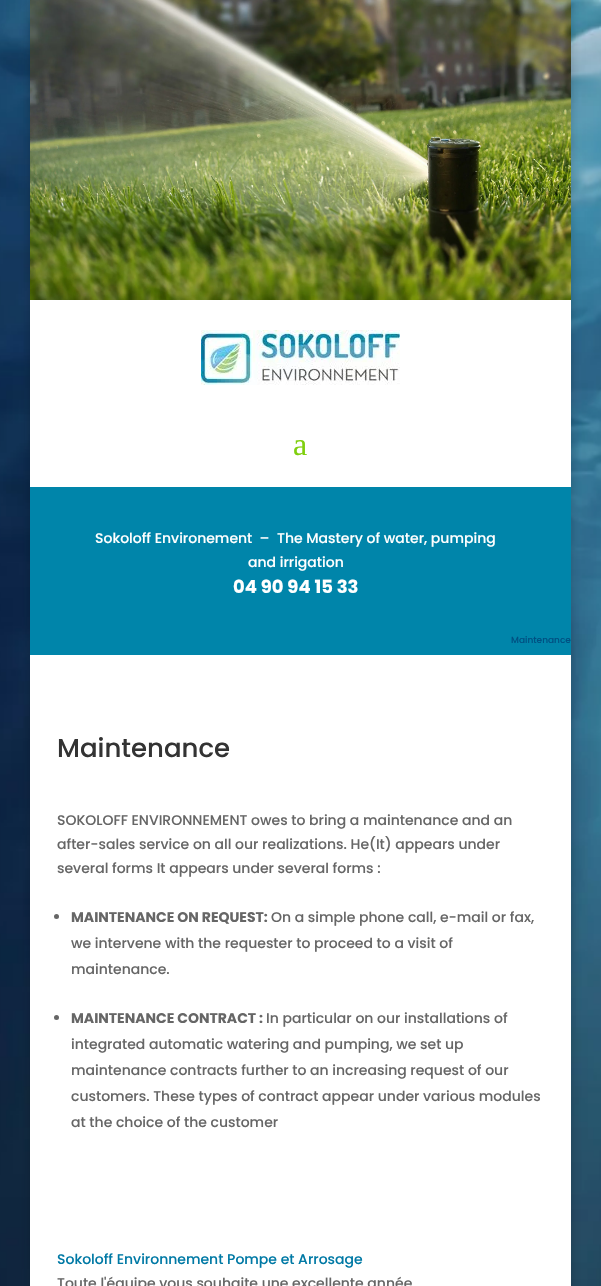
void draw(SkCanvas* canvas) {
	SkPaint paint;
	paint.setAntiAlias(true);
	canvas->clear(0xffffffff);
	canvas->drawImageRect(SkImages::DeferredFromEncodedData(SkData::MakeFromFileName("img1.png")), SkRect::MakeXYWH(0, 0, 601, 1286), SkSamplingOptions());
	paint.setColor(0x33000000);
	paint.setMaskFilter(SkMaskFilter::MakeBlur(kNormal_SkBlurStyle, 5));
	canvas->drawRect(SkRect::MakeXYWH(30, 0, 541, 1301), paint);
	paint.setMaskFilter(nullptr);
	canvas->drawImageRect(SkImages::DeferredFromEncodedData(SkData::MakeFromFileName("img2.png")), SkRect::MakeXYWH(30, 0, 541, 300), SkSamplingOptions());
	paint.setColor(0xffffffff);
	canvas->drawRect(SkRect::MakeXYWH(30, 300, 541, 187), paint);
	canvas->drawImageRect(SkImages::DeferredFromEncodedData(SkData::MakeFromFileName("img3.png")), SkRect::MakeXYWH(201, 330, 199, 55), SkSamplingOptions());
	SkFont f1(fontMgr->matchFamilyStyle("Liberation Serif", SkFontStyle::Normal()), 32);
	f1.setSubpixel(true);
	paint.setColor(0xff7fcf0e);
	canvas->drawString("a", 293, 455, f1, paint);
	paint.setColor(0xff0085aa);
	canvas->drawRect(SkRect::MakeXYWH(30, 487, 541, 168), paint);
	SkFont f2(fontMgr->matchFamilyStyle("Poppins", SkFontStyle(500, SkFontStyle::kNormal_Width, SkFontStyle::kUpright_Slant)), 14);
	f2.setSubpixel(true);
	paint.setColor(0xffffffff);
	canvas->drawString("Sokoloff Environement  –", 95, 543, f2, paint);
	canvas->drawString("The Mastery of water, pumping", 277, 543, f2, paint);
	canvas->drawString("and irrigation", 248, 567, f2, paint);
	SkFont f3(fontMgr->matchFamilyStyle("Poppins", SkFontStyle::Bold()), 18);
	f3.setSubpixel(true);
	canvas->drawString("04 90 94 15 33", 233, 593, f3, paint);
	SkFont f4(fontMgr->matchFamilyStyle("Poppins", SkFontStyle(500, SkFontStyle::kNormal_Width, SkFontStyle::kUpright_Slant)), 9);
	f4.setSubpixel(true);
	paint.setColor(0xff005082);
	canvas->drawString("Maintenance", 511, 643, f4, paint);
	paint.setColor(0xffffffff);
	canvas->drawRect(SkRect::MakeXYWH(30, 655, 541, 631), paint);
	SkFont f5(fontMgr->matchFamilyStyle("Poppins", SkFontStyle(500, SkFontStyle::kNormal_Width, SkFontStyle::kUpright_Slant)), 26);
	f5.setSubpixel(true);
	paint.setColor(0xff333333);
	canvas->drawString("Maintenance", 57, 757, f5, paint);
	paint.setColor(0xff666666);
	canvas->drawString("SOKOLOFF ENVIRONNEMENT owes to bring a maintenance and an", 57, 825, f2, paint);
	canvas->drawString("after-sales service on all our realizations. He(It) appears under", 57, 849, f2, paint);
	canvas->drawString("several forms It appears under several forms :", 57, 873, f2, paint);
	canvas->drawCircle(56.5, 916.5, 2.5, paint);
	SkFont f6(fontMgr->matchFamilyStyle("Poppins", SkFontStyle::Bold()), 14);
	f6.setSubpixel(true);
	canvas->drawString("MAINTENANCE ON REQUEST:", 71, 922, f6, paint);
	canvas->drawString("On a simple phone call, e-mail or fax,", 271, 922, f2, paint);
	canvas->drawString("we intervene with the requester to proceed to a visit of", 71, 948, f2, paint);
	canvas->drawString("maintenance.", 71, 974, f2, paint);
	canvas->drawCircle(56.5, 1017.5, 2.5, paint);
	canvas->drawString("MAINTENANCE CONTRACT :", 71, 1023, f6, paint);
	canvas->drawString("In particular on our installations of", 266, 1023, f2, paint);
	canvas->drawString("integrated automatic watering and pumping, we set up", 71, 1049, f2, paint);
	canvas->drawString("maintenance contracts further to an increasing request of our", 71, 1075, f2, paint);
	canvas->drawString("customers. These types of contract appear under various modules", 71, 1101, f2, paint);
	canvas->drawString("at the choice of the customer", 71, 1127, f2, paint);
	paint.setColor(0xff0079a5);
	canvas->drawString("Sokoloff Environnement Pompe et Arrosage", 57, 1264, f2, paint);
	paint.setColor(0xff666666);
	canvas->drawString("Toute l'équipe vous souhaite une excellente année", 57, 1288, f2, paint);
}
